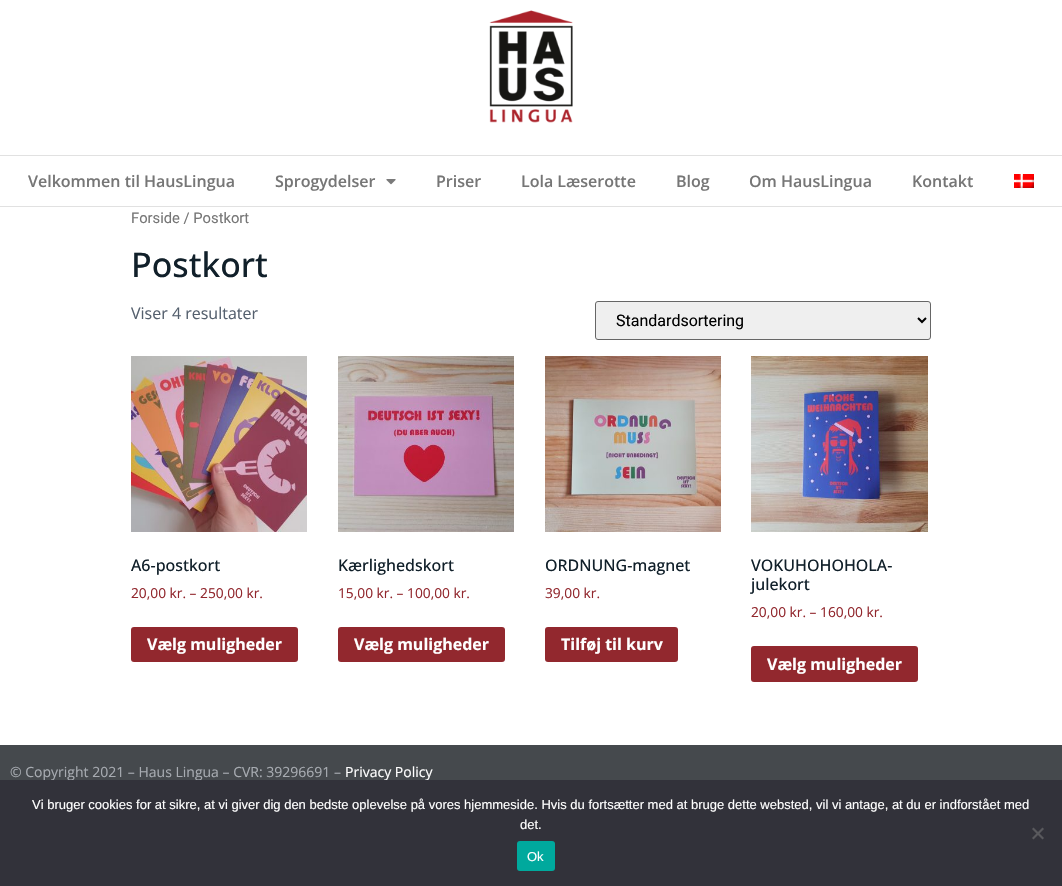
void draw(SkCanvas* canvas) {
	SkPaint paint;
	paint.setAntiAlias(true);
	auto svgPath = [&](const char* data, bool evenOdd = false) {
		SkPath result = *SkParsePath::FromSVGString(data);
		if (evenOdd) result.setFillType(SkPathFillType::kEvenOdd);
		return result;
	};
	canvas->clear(0xffffffff);
	canvas->drawImageRect(SkImages::DeferredFromEncodedData(SkData::MakeFromFileName("img1.png")), SkRect::MakeXYWH(489, 10, 84, 113), SkSamplingOptions());
	paint.setColor(0xffe1e1e1);
	canvas->drawRect(SkRect::MakeXYWH(0, 155, 1062, 1), paint);
	canvas->drawRect(SkRect::MakeXYWH(0, 206, 1062, 1), paint);
	SkFont f1(fontMgr->matchFamilyStyle("Open Sans", SkFontStyle(600, SkFontStyle::kNormal_Width, SkFontStyle::kUpright_Slant)), 16);
	f1.setSubpixel(true);
	paint.setColor(0xff767676);
	canvas->drawString("Velkommen til HausLingua", 28, 187, f1, paint);
	canvas->drawString("Sprogydelser", 275, 187, f1, paint);
	canvas->drawImageRect(SkImages::DeferredFromEncodedData(SkData::MakeFromFileName("img2.png")), SkRect::MakeXYWH(386, 179, 10, 6), SkSamplingOptions());
	canvas->drawString("Priser", 436, 187, f1, paint);
	canvas->drawString("Lola Læserotte", 521, 187, f1, paint);
	canvas->drawString("Blog", 676, 187, f1, paint);
	canvas->drawString("Om HausLingua", 749, 187, f1, paint);
	canvas->drawString("Kontakt", 912, 187, f1, paint);
	canvas->drawImageRect(SkImages::DeferredFromEncodedData(SkData::MakeFromFileName("img3.png")), SkRect::MakeXYWH(1014, 174, 20, 14), SkSamplingOptions());
	SkFont f2(fontMgr->matchFamilyStyle("Roboto", SkFontStyle::Normal()), 14.75);
	f2.setSubpixel(true);
	canvas->drawString("Forside / Postkort", 131, 223, f2, paint);
	SkFont f3(fontMgr->matchFamilyStyle("Open Sans", SkFontStyle(500, SkFontStyle::kNormal_Width, SkFontStyle::kUpright_Slant)), 34);
	f3.setSubpixel(true);
	paint.setColor(0xff11202a);
	canvas->drawString("Postkort", 131, 277, f3, paint);
	SkFont f4(fontMgr->matchFamilyStyle("Open Sans", SkFontStyle::Normal()), 16);
	f4.setSubpixel(true);
	paint.setColor(0xff55606e);
	canvas->drawString("Viser 4 resultater", 131, 319, f4, paint);
	paint.setColor(0xffefefef);
	canvas->drawRoundRect(SkRect::MakeXYWH(595.5, 301.5, 335, 38), 2.5, 2.5, paint);
	paint.setStroke(true);
	paint.setStrokeWidth(1);
	paint.setColor(0xff666666);
	canvas->drawRoundRect(SkRect::MakeXYWH(595.5, 301.5, 335, 38), 2.5, 2.5, paint);
	paint.setStrokeWidth(2);
	paint.setColor(0xff000000);
	canvas->drawPath(svgPath("M918 318L922 322L926 318"), paint);
	SkFont f5(fontMgr->matchFamilyStyle("Roboto", SkFontStyle::Normal()), 16);
	f5.setSubpixel(true);
	paint.setStroke(false);
	canvas->drawString("Standardsortering", 616, 326, f5, paint);
	canvas->drawImageRect(SkImages::DeferredFromEncodedData(SkData::MakeFromFileName("img4.png")), SkRect::MakeXYWH(131, 356, 176, 176), SkSamplingOptions());
	SkFont f6(fontMgr->matchFamilyStyle("Open Sans", SkFontStyle(500, SkFontStyle::kNormal_Width, SkFontStyle::kUpright_Slant)), 16);
	f6.setSubpixel(true);
	paint.setColor(0xff11202a);
	canvas->drawString("A6-postkort", 131, 571, f6, paint);
	SkFont f7(fontMgr->matchFamilyStyle("Open Sans", SkFontStyle::Normal()), 13.75);
	f7.setSubpixel(true);
	paint.setColor(0xff92282e);
	canvas->drawString("20,00 kr. – 250,00 kr.", 131, 598, f7, paint);
	canvas->drawRoundRect(SkRect::MakeXYWH(131, 627, 167, 35), 3, 3, paint);
	SkFont f8(fontMgr->matchFamilyStyle("Open Sans", SkFontStyle::Bold()), 16);
	f8.setSubpixel(true);
	paint.setColor(0xffffffff);
	canvas->drawString("Vælg muligheder", 147, 650, f8, paint);
	canvas->drawImageRect(SkImages::DeferredFromEncodedData(SkData::MakeFromFileName("img5.png")), SkRect::MakeXYWH(338, 356, 176, 176), SkSamplingOptions());
	paint.setColor(0xff11202a);
	canvas->drawString("Kærlighedskort", 338, 571, f6, paint);
	paint.setColor(0xff92282e);
	canvas->drawString("15,00 kr. – 100,00 kr.", 338, 598, f7, paint);
	canvas->drawRoundRect(SkRect::MakeXYWH(338, 627, 167, 35), 3, 3, paint);
	paint.setColor(0xffffffff);
	canvas->drawString("Vælg muligheder", 354, 650, f8, paint);
	canvas->drawImageRect(SkImages::DeferredFromEncodedData(SkData::MakeFromFileName("img6.png")), SkRect::MakeXYWH(545, 356, 176, 176), SkSamplingOptions());
	paint.setColor(0xff11202a);
	canvas->drawString("ORDNUNG-magnet", 545, 571, f6, paint);
	paint.setColor(0xff92282e);
	canvas->drawString("39,00 kr.", 545, 598, f7, paint);
	canvas->drawRoundRect(SkRect::MakeXYWH(545, 627, 133, 35), 3, 3, paint);
	paint.setColor(0xffffffff);
	canvas->drawString("Tilføj til kurv", 561, 650, f8, paint);
	canvas->drawImageRect(SkImages::DeferredFromEncodedData(SkData::MakeFromFileName("img7.png")), SkRect::MakeXYWH(751, 356, 177, 176), SkSamplingOptions());
	paint.setColor(0xff11202a);
	canvas->drawString("VOKUHOHOHOLA-", 751, 571, f6, paint);
	canvas->drawString("julekort", 751, 590, f6, paint);
	paint.setColor(0xff92282e);
	canvas->drawString("20,00 kr. – 160,00 kr.", 751, 617, f7, paint);
	canvas->drawRoundRect(SkRect::MakeXYWH(751, 646, 167, 36), 3, 3, paint);
	paint.setColor(0xffffffff);
	canvas->drawString("Vælg muligheder", 767, 670, f8, paint);
	paint.setColor(0xff45494d);
	canvas->drawRect(SkRect::MakeXYWH(0, 745, 1062, 35), paint);
	SkFont f9(fontMgr->matchFamilyStyle("Open Sans", SkFontStyle::Normal()), 14);
	f9.setSubpixel(true);
	paint.setColor(0xffa7abb1);
	canvas->drawString("© Copyright 2021 – Haus Lingua – CVR: 39296691 –", 10, 777, f9, paint);
	paint.setColor(0xffffffff);
	canvas->drawString("Privacy Policy", 345, 777, f9, paint);
	paint.setColor(0xff32323a);
	canvas->drawRect(SkRect::MakeXYWH(0, 780, 1062, 106), paint);
	SkFont f10(fontMgr->matchFamilyStyle("Liberation Sans", SkFontStyle::Normal()), 13);
	f10.setSubpixel(true);
	paint.setColor(0xffffffff);
	canvas->drawString("Vi bruger cookies for at sikre, at vi giver dig den bedste oplevelse på vores hjemmeside. Hvis du fortsætter med at bruge dette websted, vil vi antage, at du er indforstået med", 32, 809, f10, paint);
	canvas->drawString("det.", 520, 829, f10, paint);
	paint.setColor(0xff59595d);
	canvas->drawPath(svgPath("M1042.5 827.5L1044 829L1033.5 839.5L1032 838Z"), paint);
	canvas->drawPath(svgPath("M1032 829L1033.5 827.5L1044 838L1042.5 839.5Z"), paint);
	paint.setColor(0xff00a99d);
	canvas->drawRoundRect(SkRect::MakeXYWH(517, 841, 38, 30), 3, 3, paint);
	paint.setColor(0xffffffff);
	canvas->drawString("Ok", 527, 861, f10, paint);
}
